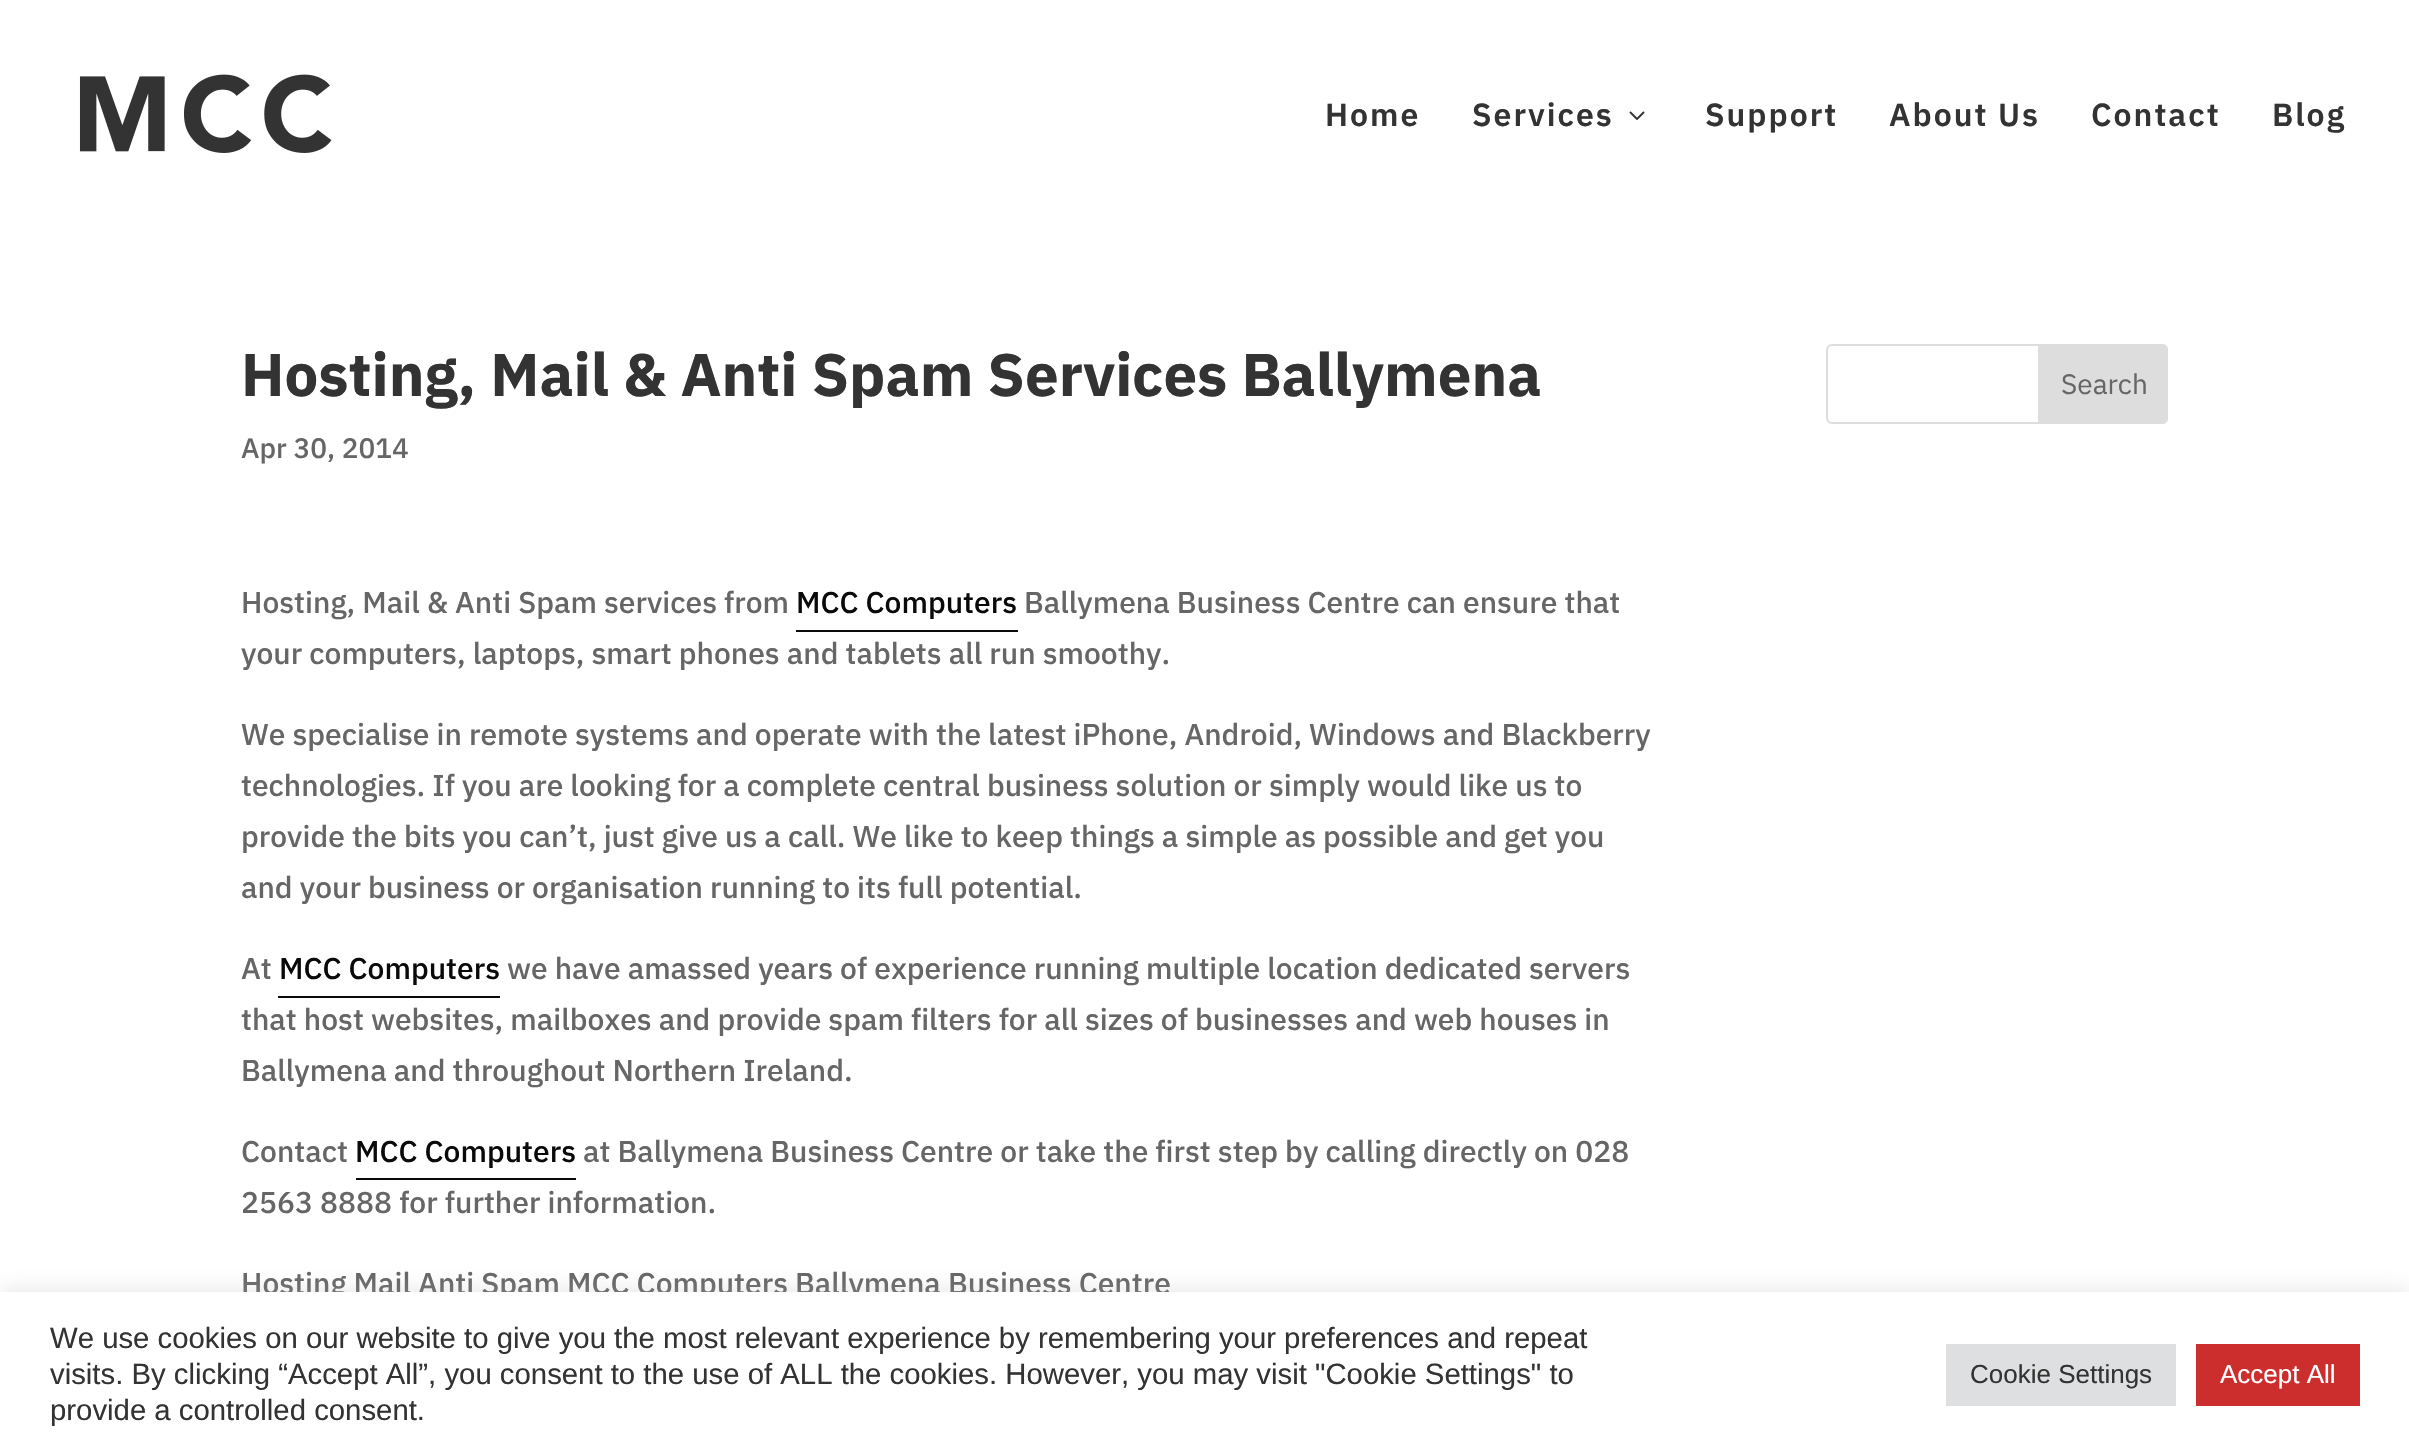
void draw(SkCanvas* canvas) {
	SkPaint paint;
	paint.setAntiAlias(true);
	auto spacedText = [&](const char* s, float x, float y, const SkFont& font, const SkPaint& ink, float letter, float word) {
		std::vector<SkGlyphID> glyphs(font.countText(s, strlen(s), SkTextEncoding::kUTF8));
		std::vector<float> xs(glyphs.size());
		font.textToGlyphs(s, strlen(s), SkTextEncoding::kUTF8, glyphs);
		font.getXPos(glyphs, xs, x);
		float extra = 0;
		for (size_t i = 0; i < glyphs.size(); i++) {
			xs[i] += extra;
			extra += letter + word * (glyphs[i] == font.unicharToGlyph(' '));
		}
		canvas->drawTextBlob(SkTextBlob::MakeFromPosHGlyphs(glyphs, xs, y, font), 0, 0, ink);
	};
	auto svgPath = [&](const char* data, bool evenOdd = false) {
		SkPath result = *SkParsePath::FromSVGString(data);
		if (evenOdd) result.setFillType(SkPathFillType::kEvenOdd);
		return result;
	};
	canvas->clear(0xffffffff);
	canvas->drawImageRect(SkImages::DeferredFromEncodedData(SkData::MakeFromFileName("img1.png")), SkRect::MakeXYWH(79, 74, 253, 79), SkSamplingOptions());
	SkFont f1(fontMgr->matchFamilyStyle("IBM Plex Sans", SkFontStyle(600, SkFontStyle::kNormal_Width, SkFontStyle::kUpright_Slant)), 32);
	f1.setSubpixel(true);
	paint.setColor(0xff333333);
	spacedText("Home", 1325, 126, f1, paint, 2, 0);
	spacedText("Services", 1472, 126, f1, paint, 2, 0);
	canvas->drawImageRect(SkImages::DeferredFromEncodedData(SkData::MakeFromFileName("img2.png")), SkRect::MakeXYWH(1629, 111, 16, 9), SkSamplingOptions());
	spacedText("Support", 1705, 126, f1, paint, 2, 0);
	spacedText("About Us", 1889, 126, f1, paint, 2, 0);
	spacedText("Contact", 2091, 126, f1, paint, 2, 0);
	spacedText("Blog", 2272, 126, f1, paint, 2, 0);
	SkFont f2(fontMgr->matchFamilyStyle("IBM Plex Sans", SkFontStyle::Bold()), 60);
	f2.setSubpixel(true);
	canvas->drawString("Hosting, Mail & Anti Spam Services Ballymena", 241, 396, f2, paint);
	SkFont f3(fontMgr->matchFamilyStyle("IBM Plex Sans", SkFontStyle(500, SkFontStyle::kNormal_Width, SkFontStyle::kUpright_Slant)), 28);
	f3.setSubpixel(true);
	paint.setColor(0xff666666);
	canvas->drawString("Apr 30, 2014", 241, 458, f3, paint);
	SkFont f4(fontMgr->matchFamilyStyle("IBM Plex Sans", SkFontStyle(500, SkFontStyle::kNormal_Width, SkFontStyle::kUpright_Slant)), 30);
	f4.setSubpixel(true);
	canvas->drawString("Hosting, Mail & Anti Spam services from", 241, 613, f4, paint);
	paint.setColor(0xff0a0a0a);
	canvas->drawString("MCC Computers", 796, 613, f4, paint);
	canvas->drawRect(SkRect::MakeXYWH(796, 630, 222, 2), paint);
	paint.setColor(0xff666666);
	canvas->drawString("Ballymena Business Centre can ensure that", 1024, 613, f4, paint);
	canvas->drawString("your computers, laptops, smart phones and tablets all run smoothy.", 241, 664, f4, paint);
	canvas->drawString("We specialise in remote systems and operate with the latest iPhone, Android, Windows and Blackberry", 241, 745, f4, paint);
	canvas->drawString("technologies. If you are looking for a complete central business solution or simply would like us to", 241, 796, f4, paint);
	canvas->drawString("provide the bits you can’t, just give us a call. We like to keep things a simple as possible and get you", 241, 847, f4, paint);
	canvas->drawString("and your business or organisation running to its full potential.", 241, 898, f4, paint);
	canvas->drawString("At", 241, 979, f4, paint);
	paint.setColor(0xff0a0a0a);
	canvas->drawString("MCC Computers", 279, 979, f4, paint);
	canvas->drawRect(SkRect::MakeXYWH(278, 996, 222, 2), paint);
	paint.setColor(0xff666666);
	canvas->drawString("we have amassed years of experience running multiple location dedicated servers", 507, 979, f4, paint);
	canvas->drawString("that host websites, mailboxes and provide spam filters for all sizes of businesses and web houses in", 241, 1030, f4, paint);
	canvas->drawString("Ballymena and throughout Northern Ireland.", 241, 1081, f4, paint);
	canvas->drawString("Contact", 241, 1162, f4, paint);
	paint.setColor(0xff0a0a0a);
	canvas->drawString("MCC Computers", 355, 1162, f4, paint);
	canvas->drawRect(SkRect::MakeXYWH(356, 1178, 220, 2), paint);
	paint.setColor(0xff666666);
	canvas->drawString("at Ballymena Business Centre or take the first step by calling directly on 028", 583, 1162, f4, paint);
	canvas->drawString("2563 8888 for further information.", 241, 1213, f4, paint);
	canvas->drawString("Hosting Mail Anti Spam MCC Computers Ballymena Business Centre", 241, 1294, f4, paint);
	paint.setStroke(true);
	paint.setStrokeWidth(2);
	paint.setColor(0xffdddddd);
	canvas->drawRoundRect(SkRect::MakeXYWH(1827, 345, 340, 78), 5, 5, paint);
	paint.setStroke(false);
	canvas->drawPath(svgPath("M2039 345H2162C2165 345 2167 347 2167 350V418C2167 421 2165 423 2162 423H2039Z"), paint);
	paint.setStroke(true);
	canvas->drawPath(svgPath("M2039 345H2162C2165 345 2167 347 2167 350V418C2167 421 2165 423 2162 423H2039Z"), paint);
	SkFont f5(fontMgr->matchFamilyStyle("IBM Plex Sans", SkFontStyle::Normal()), 28);
	f5.setSubpixel(true);
	paint.setStroke(false);
	paint.setColor(0xff666666);
	canvas->drawString("Search", 2061, 394, f5, paint);
	paint.setColor(0x4dacabab);
	paint.setMaskFilter(SkMaskFilter::MakeBlur(kNormal_SkBlurStyle, 10));
	canvas->drawRect(SkRect::MakeXYWH(0, 1290, 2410, 164), paint);
	paint.setMaskFilter(nullptr);
	paint.setColor(0xffffffff);
	canvas->drawRect(SkRect::MakeXYWH(0, 1292, 2409, 163), paint);
	SkFont f6(fontMgr->matchFamilyStyle("Liberation Sans", SkFontStyle::Normal()), 29.33);
	f6.setSubpixel(true);
	paint.setColor(0xff333333);
	canvas->drawString("We use cookies on our website to give you the most relevant experience by remembering your preferences and repeat", 50, 1348, f6, paint);
	canvas->drawString("visits. By clicking “Accept All”, you consent to the use of ALL the cookies. However, you may visit \"Cookie Settings\" to", 50, 1384, f6, paint);
	canvas->drawString("provide a controlled consent.", 50, 1420, f6, paint);
	paint.setColor(0xffdedfe0);
	canvas->drawRect(SkRect::MakeXYWH(1946, 1344, 230, 62), paint);
	SkFont f7(fontMgr->matchFamilyStyle("Liberation Sans", SkFontStyle::Normal()), 26);
	f7.setSubpixel(true);
	paint.setColor(0xff333333);
	canvas->drawString("Cookie Settings", 1970, 1383, f7, paint);
	paint.setColor(0xffcc2e2e);
	canvas->drawRect(SkRect::MakeXYWH(2196, 1344, 164, 62), paint);
	paint.setColor(0xffffffff);
	canvas->drawString("Accept All", 2220, 1383, f7, paint);
}
